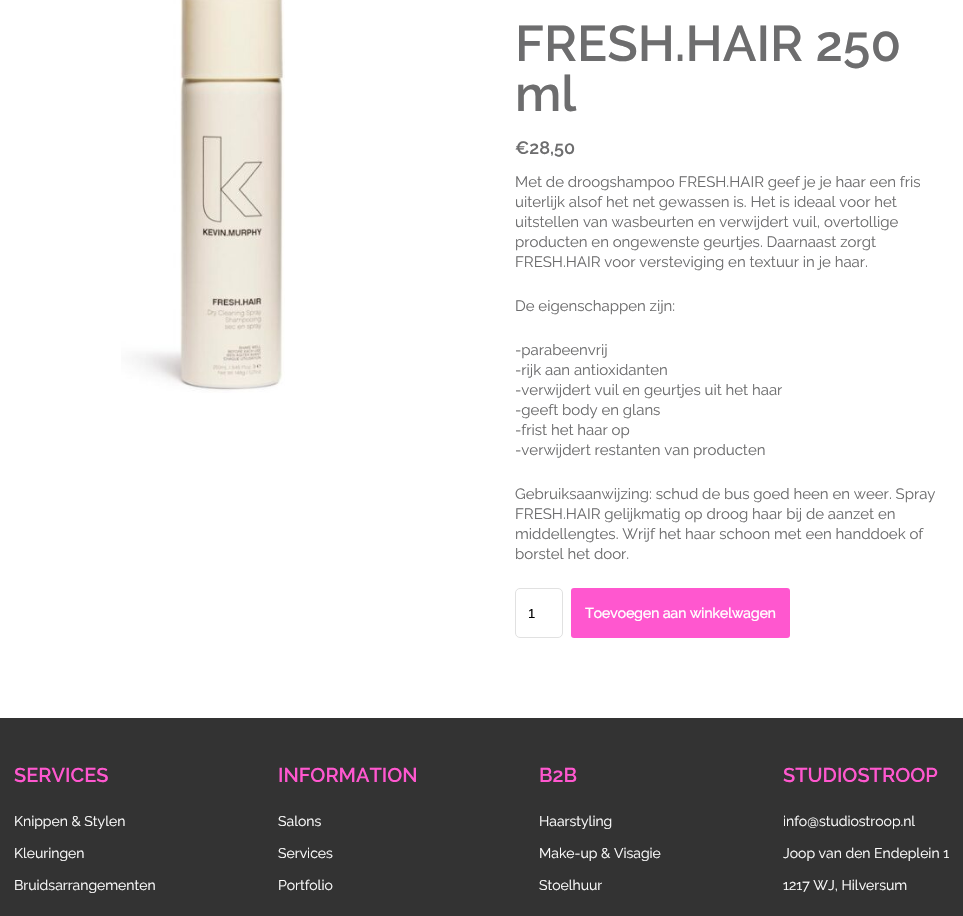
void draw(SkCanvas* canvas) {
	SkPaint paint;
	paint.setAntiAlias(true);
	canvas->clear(0xffffffff);
	canvas->drawImageRect(SkImages::DeferredFromEncodedData(SkData::MakeFromFileName("img1.png")), SkRect::MakeXYWH(121, 0, 164, 393), SkSamplingOptions());
	SkFont f1(fontMgr->matchFamilyStyle("Raleway", SkFontStyle(600, SkFontStyle::kNormal_Width, SkFontStyle::kUpright_Slant)), 50);
	f1.setSubpixel(true);
	paint.setColor(0xff6d6d6e);
	canvas->drawString("FRESH.HAIR 250", 515, 61, f1, paint);
	canvas->drawString("ml", 515, 111, f1, paint);
	SkFont f2(fontMgr->matchFamilyStyle("Raleway", SkFontStyle(600, SkFontStyle::kNormal_Width, SkFontStyle::kUpright_Slant)), 18);
	f2.setSubpixel(true);
	canvas->drawString("€28,50", 515, 154, f2, paint);
	SkFont f3(fontMgr->matchFamilyStyle("Raleway", SkFontStyle::Normal()), 15);
	f3.setSubpixel(true);
	canvas->drawString("Met de droogshampoo FRESH.HAIR geef je je haar een fris", 515, 187, f3, paint);
	canvas->drawString("uiterlijk alsof het net gewassen is. Het is ideaal voor het", 515, 207, f3, paint);
	canvas->drawString("uitstellen van wasbeurten en verwijdert vuil, overtollige", 515, 227, f3, paint);
	canvas->drawString("producten en ongewenste geurtjes. Daarnaast zorgt", 515, 247, f3, paint);
	canvas->drawString("FRESH.HAIR voor versteviging en textuur in je haar.", 515, 267, f3, paint);
	canvas->drawString("De eigenschappen zijn:", 515, 311, f3, paint);
	canvas->drawString("-parabeenvrij", 515, 355, f3, paint);
	canvas->drawString("-rijk aan antioxidanten", 515, 375, f3, paint);
	canvas->drawString("-verwijdert vuil en geurtjes uit het haar", 515, 395, f3, paint);
	canvas->drawString("-geeft body en glans", 515, 415, f3, paint);
	canvas->drawString("-frist het haar op", 515, 435, f3, paint);
	canvas->drawString("-verwijdert restanten van producten", 515, 455, f3, paint);
	canvas->drawString("Gebruiksaanwijzing: schud de bus goed heen en weer. Spray", 515, 499, f3, paint);
	canvas->drawString("FRESH.HAIR gelijkmatig op droog haar bij de aanzet en", 515, 519, f3, paint);
	canvas->drawString("middellengtes. Wrijf het haar schoon met een handdoek of", 515, 539, f3, paint);
	canvas->drawString("borstel het door.", 515, 559, f3, paint);
	paint.setStroke(true);
	paint.setStrokeWidth(1);
	paint.setColor(0xffe1e1e1);
	canvas->drawRoundRect(SkRect::MakeXYWH(515.5, 588.5, 47, 49), 4.5, 4.5, paint);
	SkFont f4(fontMgr->matchFamilyStyle("Liberation Sans", SkFontStyle::Normal()), 13);
	f4.setSubpixel(true);
	paint.setStroke(false);
	paint.setColor(0xff000000);
	canvas->drawString("1", 528, 618, f4, paint);
	paint.setColor(0xffff57cf);
	canvas->drawRoundRect(SkRect::MakeXYWH(571, 588, 219, 50), 3, 3, paint);
	SkFont f5(fontMgr->matchFamilyStyle("Raleway", SkFontStyle::Bold()), 14);
	f5.setSubpixel(true);
	paint.setColor(0xffffffff);
	canvas->drawString("Toevoegen aan winkelwagen", 585, 618, f5, paint);
	paint.setColor(0xff333333);
	canvas->drawRect(SkRect::MakeXYWH(0, 718, 963, 198), paint);
	SkFont f6(fontMgr->matchFamilyStyle("Raleway", SkFontStyle(600, SkFontStyle::kNormal_Width, SkFontStyle::kUpright_Slant)), 20);
	f6.setSubpixel(true);
	paint.setColor(0xffff57cf);
	canvas->drawString("SERVICES", 14, 782, f6, paint);
	SkFont f7(fontMgr->matchFamilyStyle("Raleway", SkFontStyle::Normal()), 14);
	f7.setSubpixel(true);
	paint.setColor(0xffffffff);
	canvas->drawString("Knippen & Stylen", 14, 826, f7, paint);
	canvas->drawString("Kleuringen", 14, 858, f7, paint);
	canvas->drawString("Bruidsarrangementen", 14, 890, f7, paint);
	paint.setColor(0xffff57cf);
	canvas->drawString("INFORMATION", 278, 782, f6, paint);
	paint.setColor(0xffffffff);
	canvas->drawString("Salons", 278, 826, f7, paint);
	canvas->drawString("Services", 278, 858, f7, paint);
	canvas->drawString("Portfolio", 278, 890, f7, paint);
	paint.setColor(0xffff57cf);
	canvas->drawString("B2B", 539, 782, f6, paint);
	paint.setColor(0xffffffff);
	canvas->drawString("Haarstyling", 539, 826, f7, paint);
	canvas->drawString("Make-up & Visagie", 539, 858, f7, paint);
	canvas->drawString("Stoelhuur", 539, 890, f7, paint);
	paint.setColor(0xffff57cf);
	canvas->drawString("STUDIOSTROOP", 783, 782, f6, paint);
	paint.setColor(0xffffffff);
	canvas->drawString("info@studiostroop.nl", 783, 826, f7, paint);
	canvas->drawString("Joop van den Endeplein 1", 783, 858, f7, paint);
	canvas->drawString("1217 WJ, Hilversum", 783, 890, f7, paint);
}
